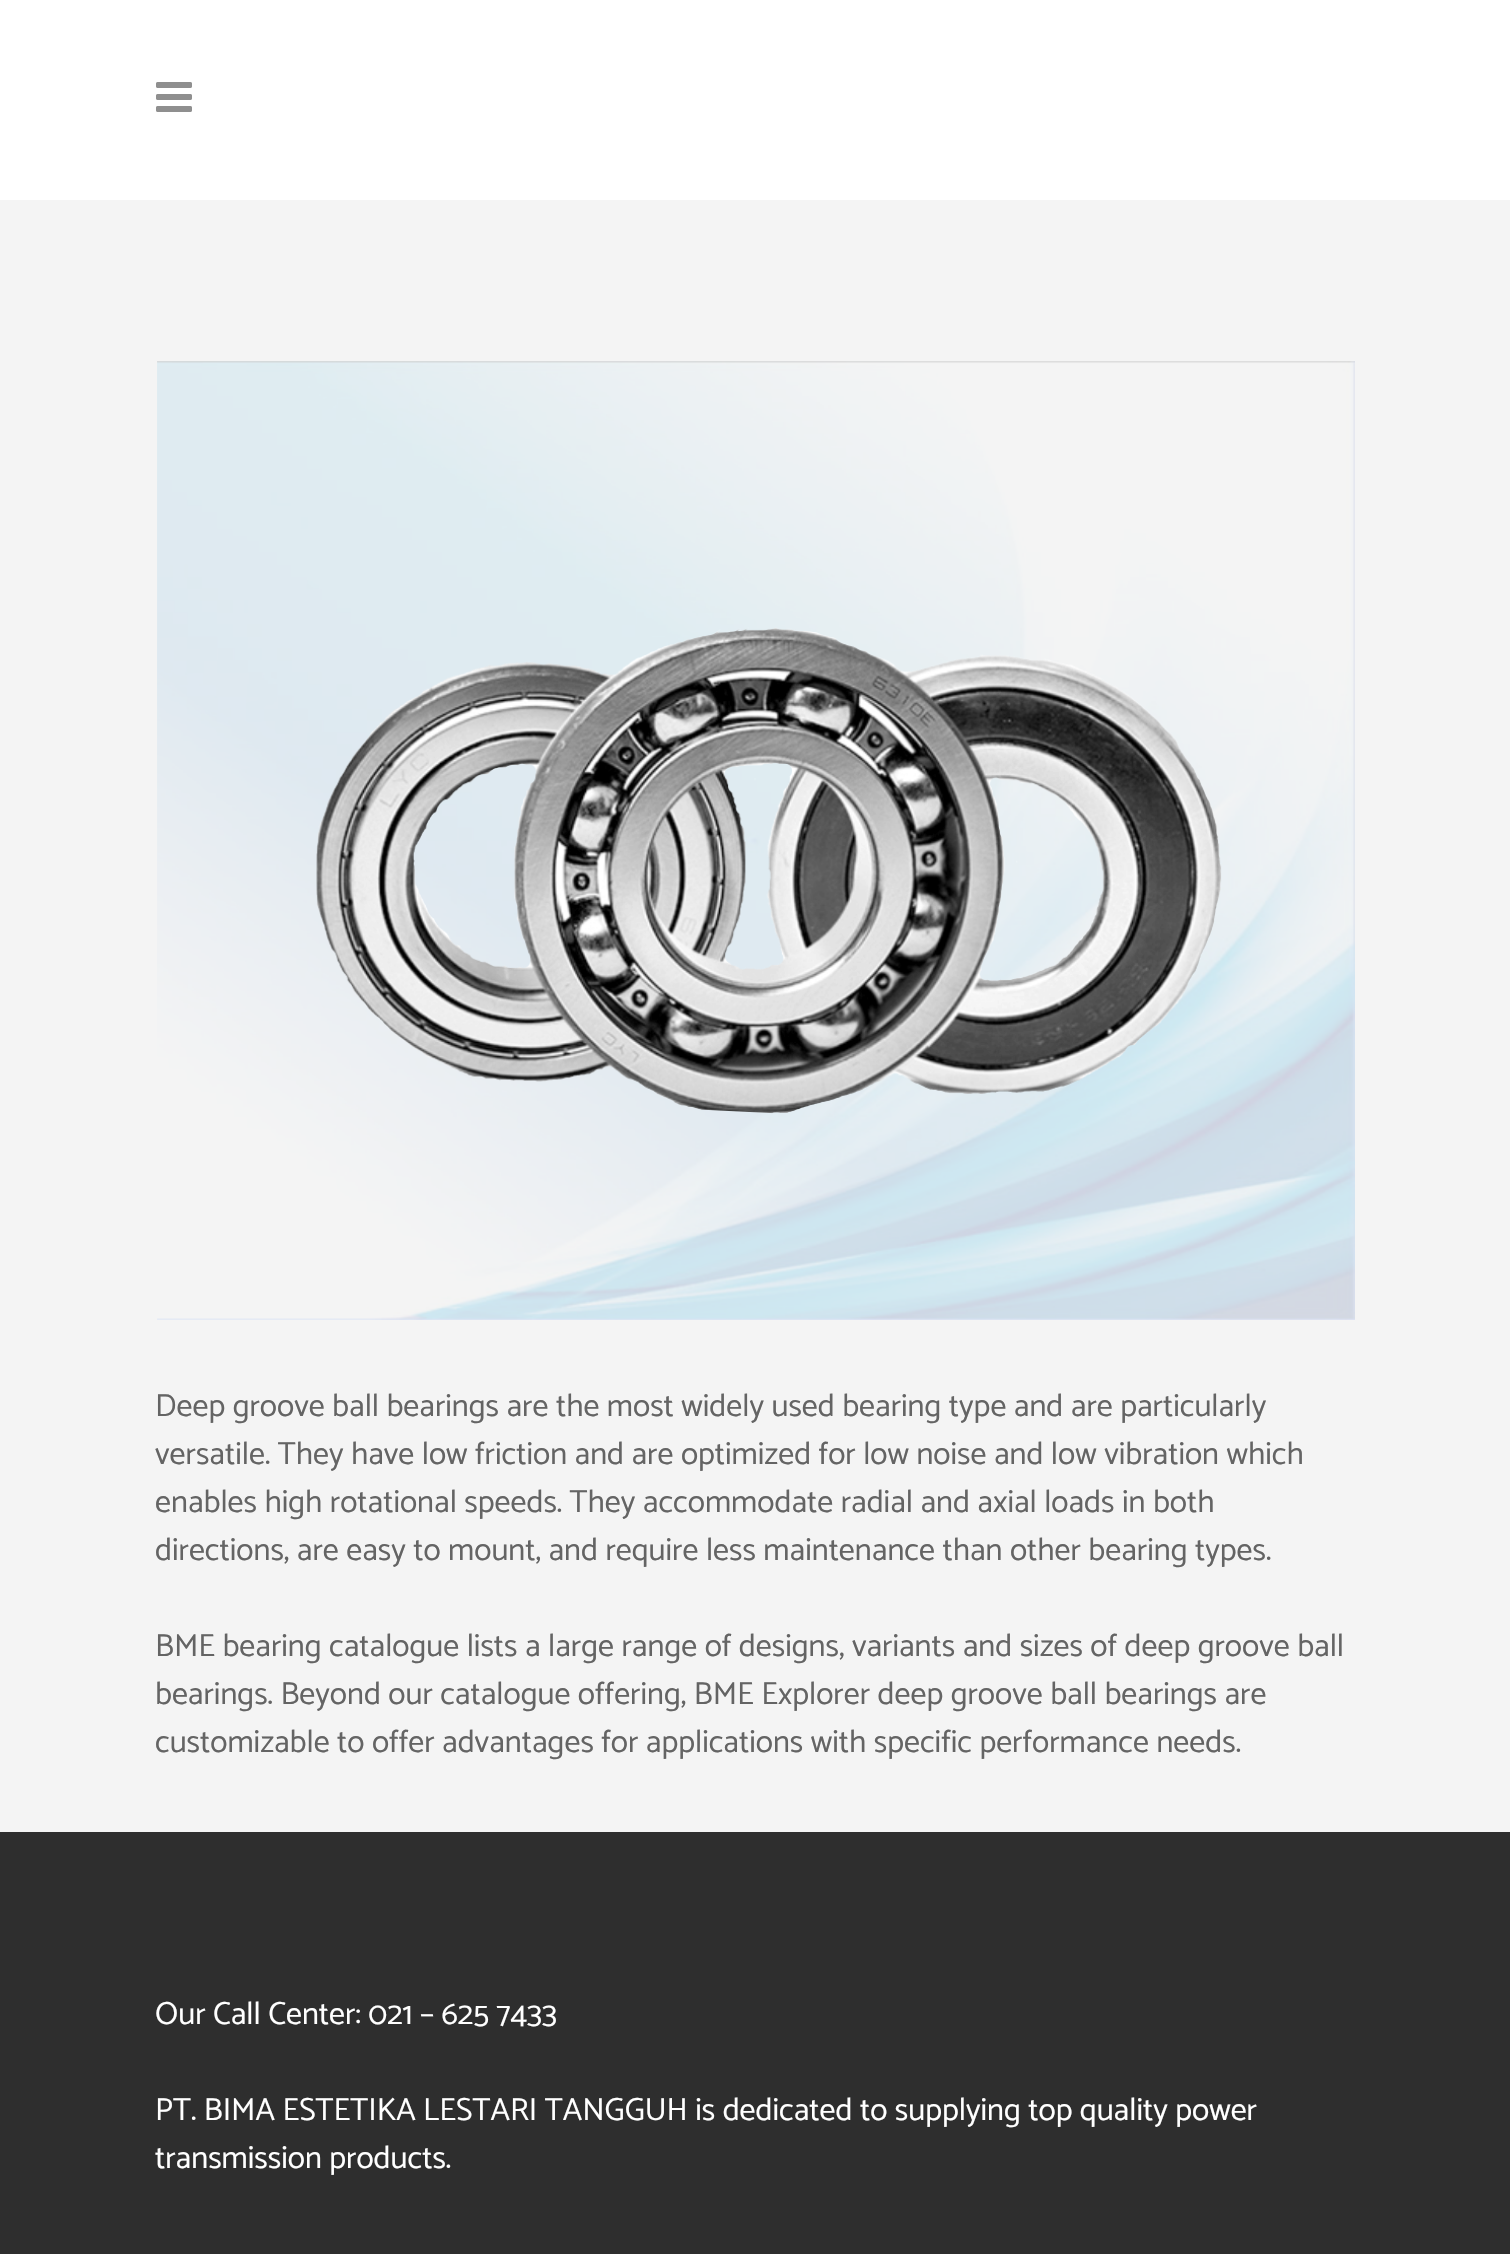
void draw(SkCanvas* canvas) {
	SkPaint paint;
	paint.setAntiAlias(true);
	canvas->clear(0xfff4f4f4);
	paint.setColor(0xffffffff);
	canvas->drawRect(SkRect::MakeXYWH(0, 0, 1510, 200), paint);
	canvas->drawImageRect(SkImages::DeferredFromEncodedData(SkData::MakeFromFileName("img1.png")), SkRect::MakeXYWH(156, 82, 36, 30), SkSamplingOptions());
	canvas->drawImageRect(SkImages::DeferredFromEncodedData(SkData::MakeFromFileName("img2.png")), SkRect::MakeXYWH(157, 361, 1198, 959), SkSamplingOptions());
	SkFont f1(fontMgr->matchFamilyStyle("Catamaran", SkFontStyle::Normal()), 32);
	f1.setSubpixel(true);
	paint.setColor(0xff646464);
	canvas->drawString("Deep groove ball bearings are the most widely used bearing type and are particularly", 155, 1416, f1, paint);
	canvas->drawString("versatile. They have low friction and are optimized for low noise and low vibration which", 155, 1464, f1, paint);
	canvas->drawString("enables high rotational speeds. They accommodate radial and axial loads in both", 155, 1512, f1, paint);
	canvas->drawString("directions, are easy to mount, and require less maintenance than other bearing types.", 155, 1560, f1, paint);
	canvas->drawString("BME bearing catalogue lists a large range of designs, variants and sizes of deep groove ball", 155, 1656, f1, paint);
	canvas->drawString("bearings. Beyond our catalogue offering, BME Explorer deep groove ball bearings are", 155, 1704, f1, paint);
	canvas->drawString("customizable to offer advantages for applications with specific performance needs.", 155, 1752, f1, paint);
	paint.setColor(0xff2e2e2e);
	canvas->drawRect(SkRect::MakeXYWH(0, 1832, 1510, 422), paint);
	paint.setColor(0xffffffff);
	canvas->drawString("Our Call Center: 021 – 625 7433", 155, 2024, f1, paint);
	canvas->drawString("PT. BIMA ESTETIKA LESTARI TANGGUH is dedicated to supplying top quality power", 155, 2120, f1, paint);
	canvas->drawString("transmission products.", 155, 2168, f1, paint);
}
